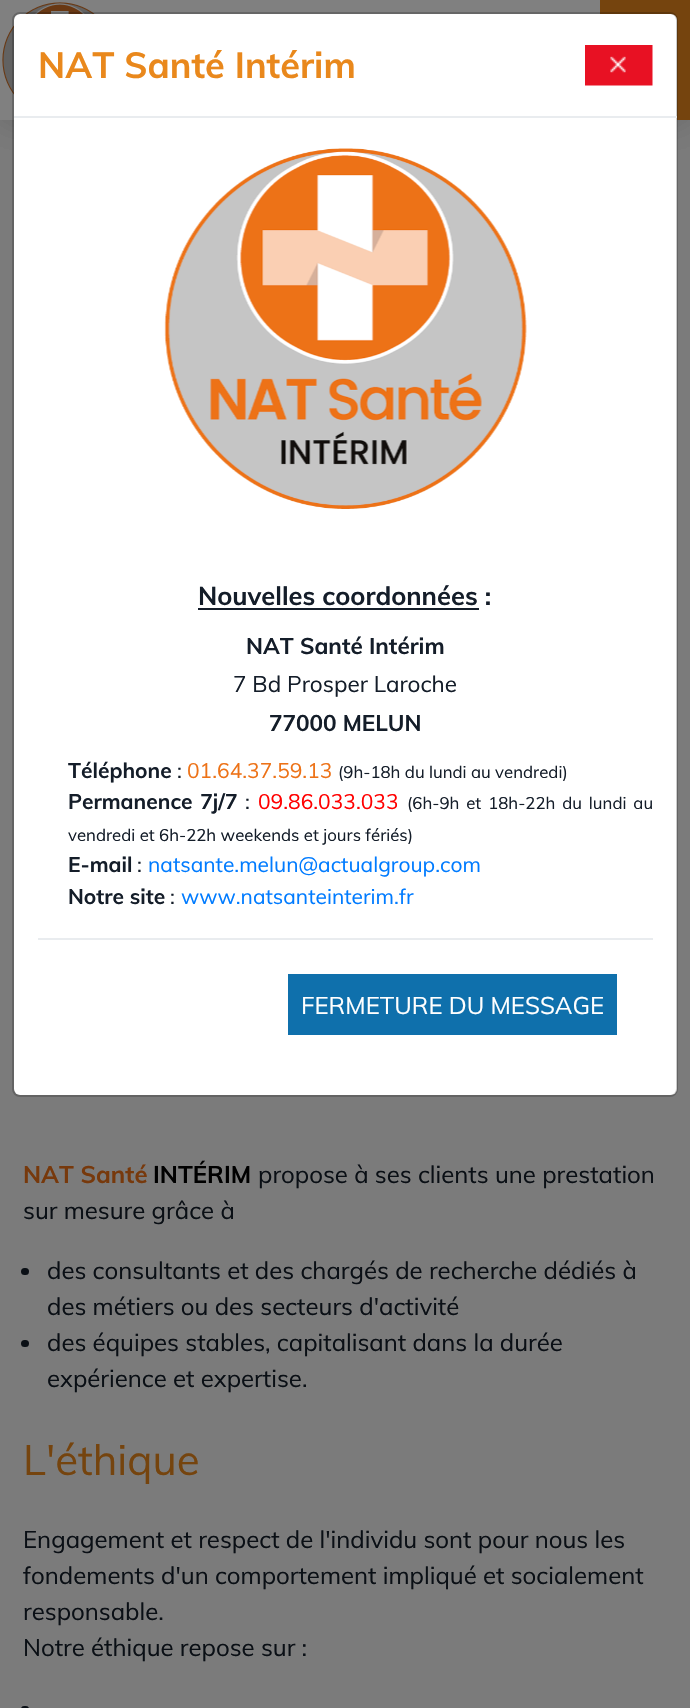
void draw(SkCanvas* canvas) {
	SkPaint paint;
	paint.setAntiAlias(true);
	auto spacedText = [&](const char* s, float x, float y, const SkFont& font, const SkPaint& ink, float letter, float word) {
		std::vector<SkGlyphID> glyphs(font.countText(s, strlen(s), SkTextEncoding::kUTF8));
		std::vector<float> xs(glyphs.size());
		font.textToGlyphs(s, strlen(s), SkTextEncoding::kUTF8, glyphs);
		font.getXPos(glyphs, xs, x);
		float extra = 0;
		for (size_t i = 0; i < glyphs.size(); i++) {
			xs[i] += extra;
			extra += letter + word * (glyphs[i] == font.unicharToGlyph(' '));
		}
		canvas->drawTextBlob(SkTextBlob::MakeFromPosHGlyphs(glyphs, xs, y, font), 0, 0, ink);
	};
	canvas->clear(0xff7b7b7b);
	paint.setColor(0x1a000000);
	paint.setMaskFilter(SkMaskFilter::MakeBlur(kNormal_SkBlurStyle, 18));
	canvas->drawRect(SkRect::MakeXYWH(0, 0, 690, 120), paint);
	paint.setMaskFilter(nullptr);
	paint.setMaskFilter(SkMaskFilter::MakeBlur(kNormal_SkBlurStyle, 18));
	canvas->drawRect(SkRect::MakeXYWH(0, 0, 690, 120), paint);
	paint.setMaskFilter(nullptr);
	paint.setColor(0xff808080);
	canvas->drawRect(SkRect::MakeXYWH(0, 0, 600, 120), paint);
	canvas->drawImageRect(SkImages::DeferredFromEncodedData(SkData::MakeFromFileName("img1.png")), SkRect::MakeXYWH(2, 2, 93, 93), SkSamplingOptions());
	paint.setColor(0xff75440e);
	canvas->drawRect(SkRect::MakeXYWH(600, 0, 90, 120), paint);
	paint.setColor(0xffffffff);
	canvas->drawRoundRect(SkRect::MakeXYWH(14, 14, 663, 1081), 6, 6, paint);
	paint.setStroke(true);
	paint.setStrokeWidth(2);
	paint.setColor(0x33000000);
	canvas->drawRoundRect(SkRect::MakeXYWH(13, 13, 664, 1083), 7, 7, paint);
	paint.setStroke(false);
	paint.setColor(0xffe9ecef);
	canvas->drawRect(SkRect::MakeXYWH(14, 116, 663, 2), paint);
	SkFont f1(fontMgr->matchFamilyStyle("Muli", SkFontStyle::Bold()), 36);
	f1.setSubpixel(true);
	paint.setColor(0xffe9881c);
	canvas->drawString("NAT Santé Intérim", 38, 78, f1, paint);
	canvas->drawImageRect(SkImages::DeferredFromEncodedData(SkData::MakeFromFileName("img2.png")), SkRect::MakeXYWH(585, 45, 68, 41), SkSamplingOptions());
	canvas->drawImageRect(SkImages::DeferredFromEncodedData(SkData::MakeFromFileName("img3.png")), SkRect::MakeXYWH(164, 148, 363, 361), SkSamplingOptions());
	SkFont f2(fontMgr->matchFamilyStyle("Muli", SkFontStyle::Bold()), 25.5);
	f2.setSubpixel(true);
	paint.setColor(0xff141d29);
	canvas->drawString("Nouvelles coordonnées :", 198, 605, f2, paint);
	canvas->drawRect(SkRect::MakeXYWH(198, 608, 281, 2), paint);
	SkFont f3(fontMgr->matchFamilyStyle("Muli", SkFontStyle::Bold()), 22.5);
	f3.setSubpixel(true);
	canvas->drawString("NAT Santé Intérim", 246, 654, f3, paint);
	SkFont f4(fontMgr->matchFamilyStyle("Muli", SkFontStyle::Normal()), 22.5);
	f4.setSubpixel(true);
	canvas->drawString("7 Bd Prosper Laroche", 233, 692, f4, paint);
	canvas->drawString("77000 MELUN", 269, 731, f3, paint);
	SkFont f5(fontMgr->matchFamilyStyle("Muli", SkFontStyle::Bold()), 21);
	f5.setSubpixel(true);
	canvas->drawString("Téléphone", 68, 778, f5, paint);
	SkFont f6(fontMgr->matchFamilyStyle("Muli", SkFontStyle::Normal()), 21);
	f6.setSubpixel(true);
	canvas->drawString(":", 177, 778, f6, paint);
	paint.setColor(0xffed7217);
	canvas->drawString("01.64.37.59.13", 187, 778, f6, paint);
	SkFont f7(fontMgr->matchFamilyStyle("Muli", SkFontStyle::Normal()), 16.8);
	f7.setSubpixel(true);
	paint.setColor(0xff141d29);
	canvas->drawString("(9h-18h du lundi au vendredi)", 338, 778, f7, paint);
	spacedText("Permanence 7j/7", 68, 809, f5, paint, 0, 2);
	canvas->drawString(":", 245, 809, f6, paint);
	paint.setColor(0xffff0000);
	canvas->drawString("09.86.033.033", 258, 809, f6, paint);
	paint.setColor(0xff141d29);
	spacedText("(6h-9h et 18h-22h du lundi au", 407, 809, f7, paint, 0, 2.5);
	canvas->drawString("vendredi et 6h-22h weekends et jours fériés)", 68, 841, f7, paint);
	canvas->drawString("E-mail", 68, 872, f5, paint);
	canvas->drawString(":", 137, 872, f6, paint);
	paint.setColor(0xff007bff);
	canvas->drawString("natsante.melun@actualgroup.com", 148, 872, f6, paint);
	paint.setColor(0xff141d29);
	canvas->drawString("Notre site", 68, 904, f5, paint);
	canvas->drawString(":", 170, 904, f6, paint);
	paint.setColor(0xff007bff);
	canvas->drawString("www.natsanteinterim.fr", 181, 904, f6, paint);
	paint.setColor(0xffe9ecef);
	canvas->drawRect(SkRect::MakeXYWH(38, 938, 615, 2), paint);
	paint.setColor(0xff0f70ac);
	canvas->drawRect(SkRect::MakeXYWH(288, 974, 329, 61), paint);
	SkFont f8(fontMgr->matchFamilyStyle("Muli", SkFontStyle::Normal()), 24);
	f8.setSubpixel(true);
	paint.setColor(0xffffffff);
	canvas->drawString("FERMETURE DU MESSAGE", 301, 1014, f8, paint);
	SkFont f9(fontMgr->matchFamilyStyle("Muli", SkFontStyle::Bold()), 24);
	f9.setSubpixel(true);
	paint.setColor(0xff77390c);
	canvas->drawString("NAT Santé", 23, 1183, f9, paint);
	paint.setColor(0xff000000);
	canvas->drawString("INTÉRIM", 153, 1183, f9, paint);
	paint.setColor(0xff0a0f15);
	canvas->drawString("propose à ses clients une prestation", 258, 1183, f8, paint);
	canvas->drawString("sur mesure grâce à", 23, 1219, f8, paint);
	canvas->drawRoundRect(SkRect::MakeXYWH(21, 1268, 8, 7), 3.5, 3.5, paint);
	canvas->drawString("des consultants et des chargés de recherche dédiés à", 47, 1279, f8, paint);
	canvas->drawString("des métiers ou des secteurs d'activité", 47, 1315, f8, paint);
	canvas->drawRoundRect(SkRect::MakeXYWH(21, 1340, 8, 7), 3.5, 3.5, paint);
	canvas->drawString("des équipes stables, capitalisant dans la durée", 47, 1351, f8, paint);
	canvas->drawString("expérience et expertise.", 47, 1387, f8, paint);
	SkFont f10(fontMgr->matchFamilyStyle("Muli", SkFontStyle::Normal()), 42);
	f10.setSubpixel(true);
	paint.setColor(0xff75440e);
	canvas->drawString("L'éthique", 23, 1475, f10, paint);
	paint.setColor(0xff0a0f15);
	canvas->drawString("Engagement et respect de l'individu sont pour nous les", 23, 1548, f8, paint);
	canvas->drawString("fondements d'un comportement impliqué et socialement", 23, 1584, f8, paint);
	canvas->drawString("responsable.", 23, 1620, f8, paint);
	canvas->drawString("Notre éthique repose sur :", 23, 1656, f8, paint);
	canvas->drawRoundRect(SkRect::MakeXYWH(21, 1706, 8, 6), 3.5, 3.5, paint);
}
